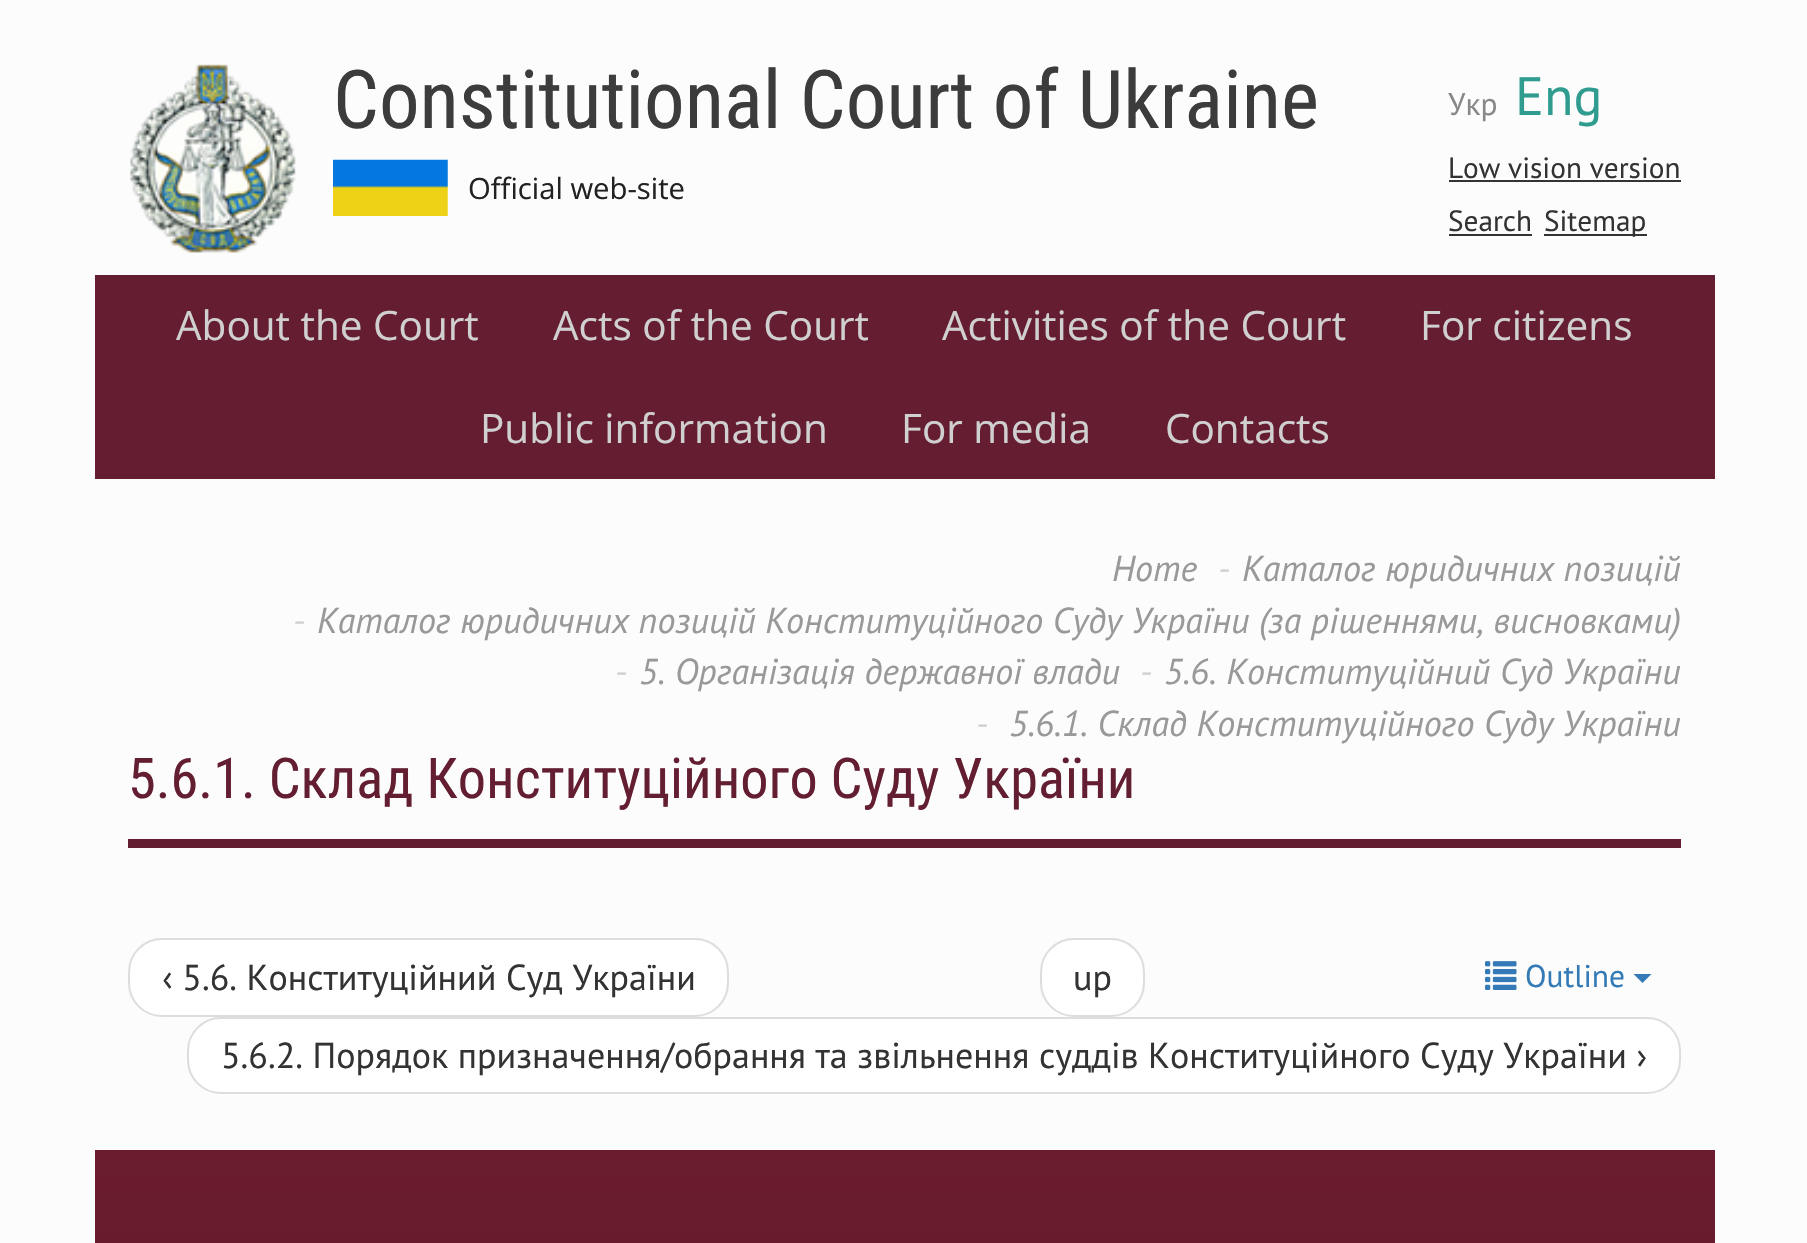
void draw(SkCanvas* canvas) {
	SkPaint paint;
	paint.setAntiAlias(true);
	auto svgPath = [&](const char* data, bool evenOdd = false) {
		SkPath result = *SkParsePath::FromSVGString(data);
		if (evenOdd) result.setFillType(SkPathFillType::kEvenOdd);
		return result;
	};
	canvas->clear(0xfffcfcfc);
	canvas->drawImageRect(SkImages::DeferredFromEncodedData(SkData::MakeFromFileName("img1.png")), SkRect::MakeXYWH(130, 64, 166, 189), SkSamplingOptions());
	SkFont f1(fontMgr->matchFamilyStyle("Roboto Condensed", SkFontStyle::Normal()), 81);
	f1.setSubpixel(true);
	paint.setColor(0xff3c3c3c);
	canvas->drawString("Constitutional Court of Ukraine", 333, 128, f1, paint);
	canvas->drawImageRect(SkImages::DeferredFromEncodedData(SkData::MakeFromFileName("img2.png")), SkRect::MakeXYWH(333, 159, 115, 57), SkSamplingOptions());
	SkFont f2(fontMgr->matchFamilyStyle("Open Sans", SkFontStyle::Normal()), 29.25);
	f2.setSubpixel(true);
	paint.setColor(0xff222222);
	canvas->drawString("Official web-site", 468, 199, f2, paint);
	SkFont f3(fontMgr->matchFamilyStyle("PT Sans", SkFontStyle::Normal()), 31.5);
	f3.setSubpixel(true);
	paint.setColor(0xff888888);
	canvas->drawString("Укр", 1448, 115, f3, paint);
	SkFont f4(fontMgr->matchFamilyStyle("PT Sans", SkFontStyle::Normal()), 54);
	f4.setSubpixel(true);
	paint.setColor(0xff309c8f);
	canvas->drawString("Eng", 1515, 115, f4, paint);
	SkFont f5(fontMgr->matchFamilyStyle("PT Sans", SkFontStyle::Normal()), 29.25);
	f5.setSubpixel(true);
	paint.setColor(0xff333333);
	canvas->drawString("Low vision version", 1448, 178, f5, paint);
	canvas->drawRect(SkRect::MakeXYWH(1449, 180, 232, 2), paint);
	canvas->drawString("Search", 1448, 231, f5, paint);
	canvas->drawRect(SkRect::MakeXYWH(1449, 234, 83, 2), paint);
	canvas->drawRect(SkRect::MakeXYWH(1544, 234, 103, 2), paint);
	canvas->drawString("Sitemap", 1544, 231, f5, paint);
	paint.setColor(0xff651d31);
	canvas->drawRect(SkRect::MakeXYWH(95, 275, 1620, 204), paint);
	SkFont f6(fontMgr->matchFamilyStyle("Open Sans", SkFontStyle::Normal()), 40.5);
	f6.setSubpixel(true);
	paint.setColor(0xffd0d0d0);
	canvas->drawString("About the Court", 176, 340, f6, paint);
	canvas->drawString("Acts of the Court", 553, 340, f6, paint);
	canvas->drawString("Activities of the Court", 942, 340, f6, paint);
	canvas->drawString("For citizens", 1420, 340, f6, paint);
	canvas->drawString("Public information", 480, 443, f6, paint);
	canvas->drawString("For media", 901, 443, f6, paint);
	canvas->drawString("Contacts", 1165, 443, f6, paint);
	SkFont f7(fontMgr->matchFamilyStyle("PT Sans", SkFontStyle::Italic()), 36);
	f7.setSubpixel(true);
	paint.setColor(0xff999999);
	canvas->drawString("Home", 1112, 581, f7, paint);
	paint.setColor(0xffd0d0d0);
	canvas->drawString("-", 1218, 581, f7, paint);
	paint.setColor(0xff999999);
	canvas->drawString("Каталог юридичних позицій", 1242, 581, f7, paint);
	paint.setColor(0xffd0d0d0);
	canvas->drawString("-", 293, 633, f7, paint);
	paint.setColor(0xff999999);
	canvas->drawString("Каталог юридичних позицій Конституційного Суду України (за рішеннями, висновками)", 317, 633, f7, paint);
	paint.setColor(0xffd0d0d0);
	canvas->drawString("-", 615, 684, f7, paint);
	paint.setColor(0xff999999);
	canvas->drawString("5. Організація державної влади", 639, 684, f7, paint);
	paint.setColor(0xffd0d0d0);
	canvas->drawString("-", 1140, 684, f7, paint);
	paint.setColor(0xff999999);
	canvas->drawString("5.6. Конституційний Суд України", 1164, 684, f7, paint);
	paint.setColor(0xffd0d0d0);
	canvas->drawString("-", 976, 736, f7, paint);
	paint.setColor(0xff999999);
	canvas->drawString("5.6.1. Склад Конституційного Суду України", 1009, 736, f7, paint);
	paint.setColor(0xff641e31);
	canvas->drawRect(SkRect::MakeXYWH(128, 839, 1553, 9), paint);
	SkFont f8(fontMgr->matchFamilyStyle("Roboto Condensed", SkFontStyle::Normal()), 56.25);
	f8.setSubpixel(true);
	canvas->drawString("5.6.1. Склад Конституційного Суду України", 128, 798, f8, paint);
	paint.setColor(0xffffffff);
	canvas->drawRoundRect(SkRect::MakeXYWH(129, 939, 599, 77), 33, 33, paint);
	paint.setStroke(true);
	paint.setStrokeWidth(2);
	paint.setColor(0xffdddddd);
	canvas->drawRoundRect(SkRect::MakeXYWH(129, 939, 599, 77), 33, 33, paint);
	SkFont f9(fontMgr->matchFamilyStyle("PT Sans", SkFontStyle::Normal()), 36);
	f9.setSubpixel(true);
	paint.setStroke(false);
	paint.setColor(0xff333333);
	canvas->drawString("‹ 5.6. Конституційний Суд України", 162, 990, f9, paint);
	paint.setColor(0xffffffff);
	canvas->drawRoundRect(SkRect::MakeXYWH(1041, 939, 103, 77), 33, 33, paint);
	paint.setStroke(true);
	paint.setColor(0xffdddddd);
	canvas->drawRoundRect(SkRect::MakeXYWH(1041, 939, 103, 77), 33, 33, paint);
	paint.setStroke(false);
	paint.setColor(0xff333333);
	canvas->drawString("up", 1073, 990, f9, paint);
	paint.setColor(0xffffffff);
	canvas->drawRoundRect(SkRect::MakeXYWH(188, 1018, 1492, 75), 33, 33, paint);
	paint.setStroke(true);
	paint.setColor(0xffdddddd);
	canvas->drawRoundRect(SkRect::MakeXYWH(188, 1018, 1492, 75), 33, 33, paint);
	paint.setStroke(false);
	paint.setColor(0xff333333);
	canvas->drawString("5.6.2. Порядок призначення/обрання та звільнення суддів Конституційного Суду України ›", 221, 1068, f9, paint);
	canvas->drawImageRect(SkImages::DeferredFromEncodedData(SkData::MakeFromFileName("img3.png")), SkRect::MakeXYWH(1485, 961, 32, 29), SkSamplingOptions());
	paint.setColor(0xff337ab7);
	canvas->drawString("Outline", 1525, 987, f3, paint);
	canvas->drawPath(svgPath("M1633.5 974H1651.5L1642.5 983Z"), paint);
	{
		const SkColor colors[] = {0xff6b1d2f, 0xff4b0b1c};
		const float stops[] = {0, 1};
		const SkPoint ends[] = {{905, 1150}, {905, 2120}};
		paint.setShader(SkGradientShader::MakeLinear(ends, colors, stops, 2, SkTileMode::kClamp));
		paint.setAlpha(255);
	}
	canvas->drawRect(SkRect::MakeXYWH(95, 1150, 1620, 93), paint);
}
